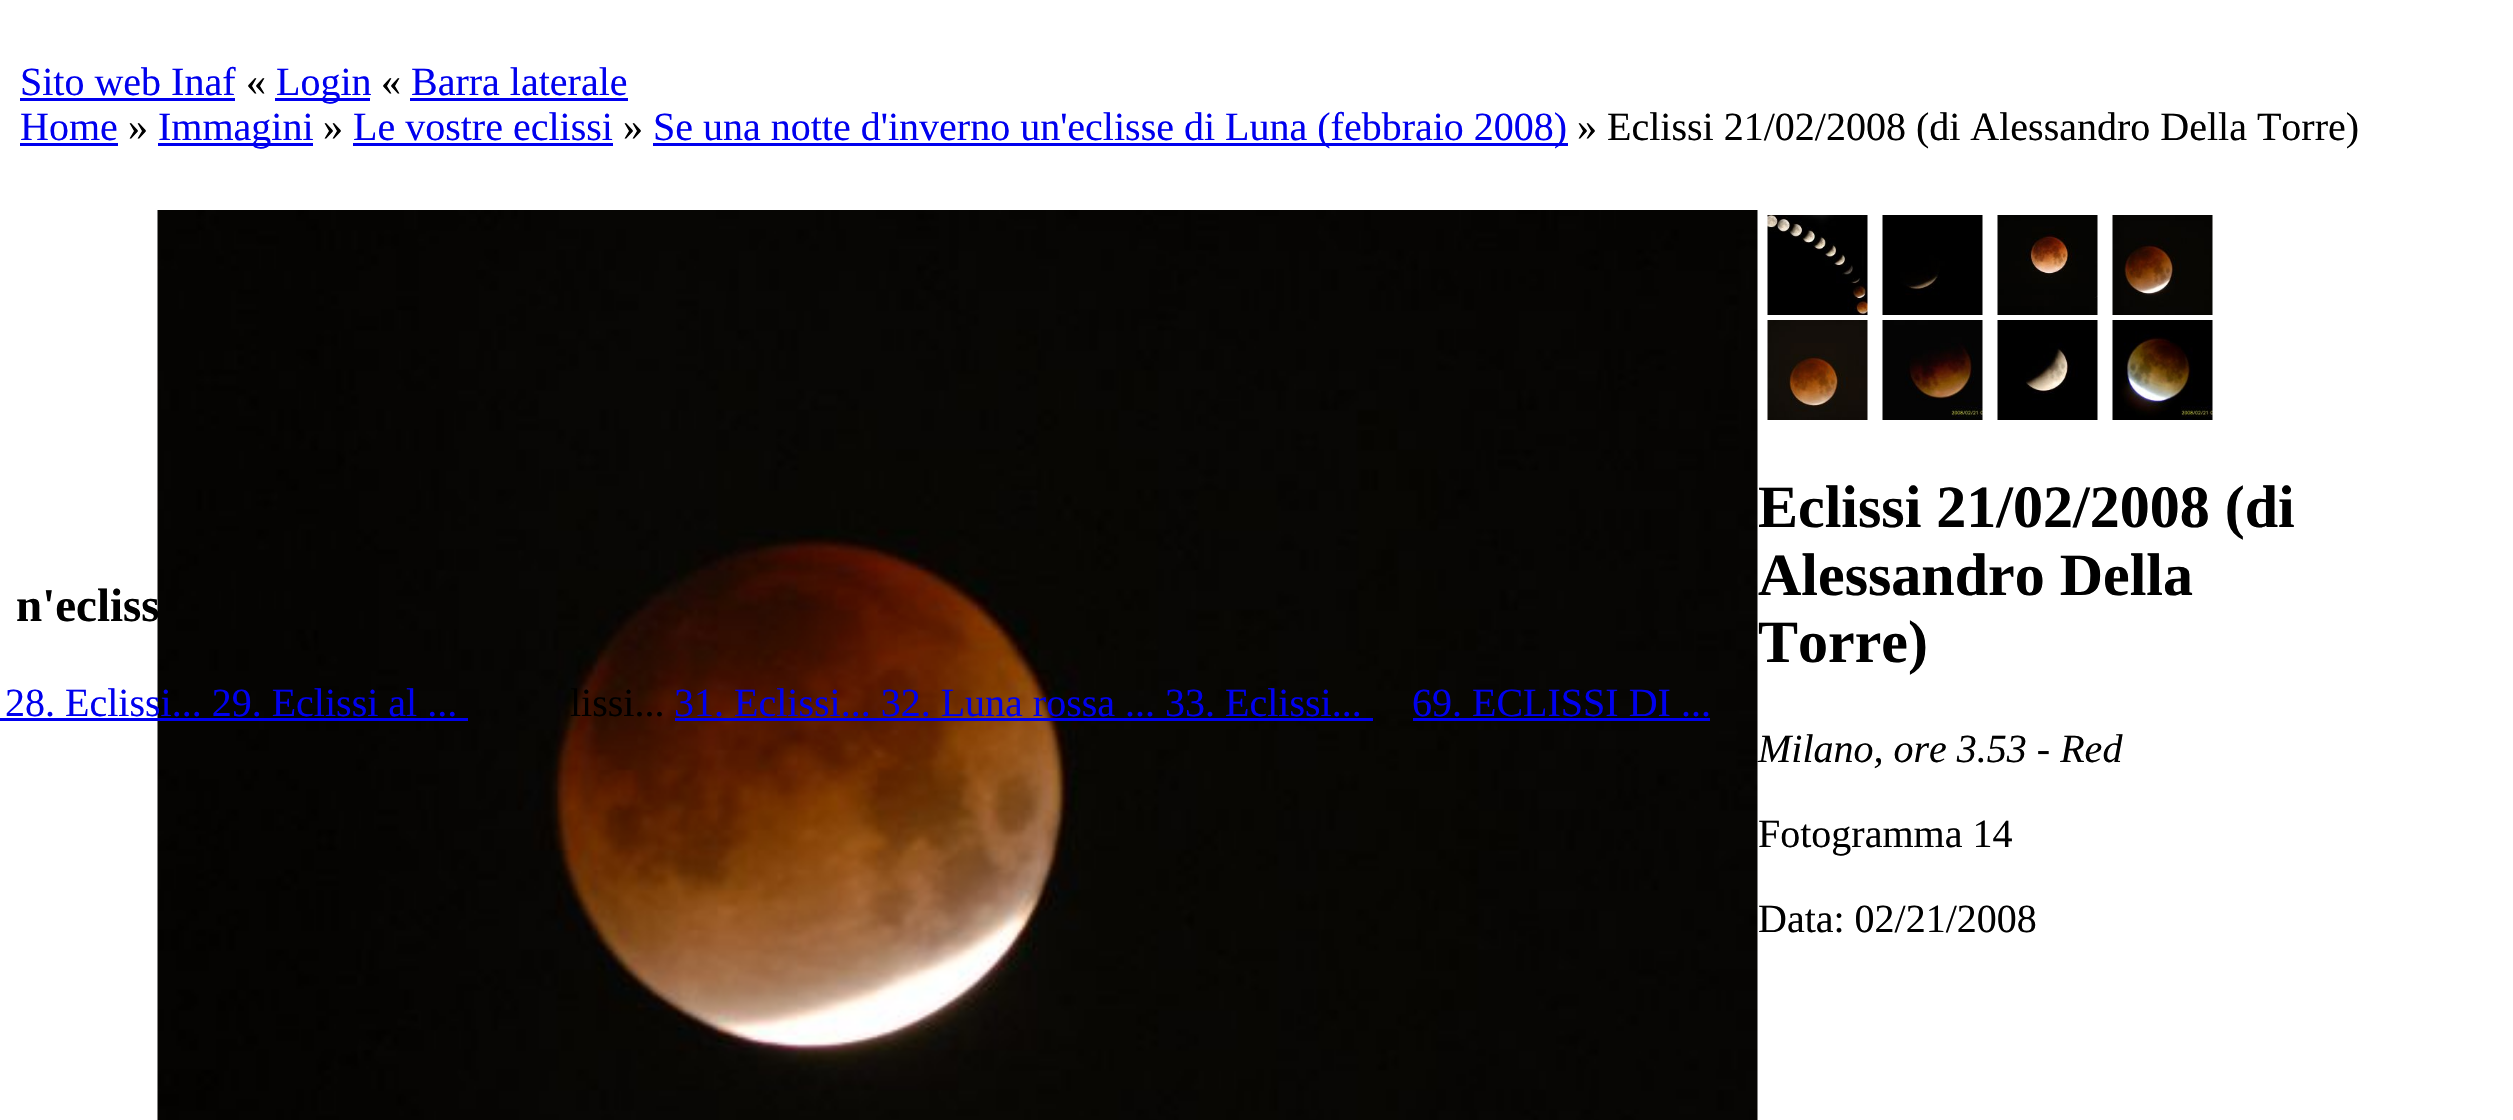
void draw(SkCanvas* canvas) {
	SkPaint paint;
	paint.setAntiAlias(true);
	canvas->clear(0xffffffff);
	SkFont f1(fontMgr->matchFamilyStyle("Liberation Serif", SkFontStyle::Normal()), 40);
	f1.setSubpixel(true);
	paint.setColor(0xff0000ee);
	canvas->drawString("Sito web Inaf", 20, 95, f1, paint);
	canvas->drawRect(SkRect::MakeXYWH(20, 98, 215, 3), paint);
	paint.setColor(0xff000000);
	canvas->drawString("«", 246, 95, f1, paint);
	paint.setColor(0xff0000ee);
	canvas->drawRect(SkRect::MakeXYWH(275, 98, 95, 3), paint);
	canvas->drawString("Login", 276, 95, f1, paint);
	paint.setColor(0xff000000);
	canvas->drawString("«", 381, 95, f1, paint);
	paint.setColor(0xff0000ee);
	canvas->drawString("Barra laterale", 411, 95, f1, paint);
	canvas->drawRect(SkRect::MakeXYWH(410, 98, 218, 3), paint);
	canvas->drawString("Home", 20, 140, f1, paint);
	canvas->drawRect(SkRect::MakeXYWH(20, 143, 98, 3), paint);
	paint.setColor(0xff000000);
	canvas->drawString("»", 128, 140, f1, paint);
	paint.setColor(0xff0000ee);
	canvas->drawRect(SkRect::MakeXYWH(158, 143, 155, 3), paint);
	canvas->drawString("Immagini", 158, 140, f1, paint);
	paint.setColor(0xff000000);
	canvas->drawString("»", 323, 140, f1, paint);
	paint.setColor(0xff0000ee);
	canvas->drawString("Le vostre eclissi", 353, 140, f1, paint);
	canvas->drawRect(SkRect::MakeXYWH(353, 143, 260, 3), paint);
	paint.setColor(0xff000000);
	canvas->drawString("»", 623, 140, f1, paint);
	paint.setColor(0xff0000ee);
	canvas->drawRect(SkRect::MakeXYWH(653, 143, 915, 3), paint);
	canvas->drawString("Se una notte d'inverno un'eclisse di Luna (febbraio 2008)", 653, 140, f1, paint);
	paint.setColor(0xff000000);
	canvas->drawString("» Eclissi 21/02/2008 (di Alessandro Della Torre)", 1577, 140, f1, paint);
	canvas->drawImageRect(SkImages::DeferredFromEncodedData(SkData::MakeFromFileName("img1.png")), SkRect::MakeXYWH(157, 210, 1601, 910), SkSamplingOptions());
	SkFont f2(fontMgr->matchFamilyStyle("Liberation Serif", SkFontStyle::Bold()), 47);
	f2.setSubpixel(true);
	canvas->drawString("n'ecliss", 16, 621, f2, paint);
	paint.setColor(0xff0000ee);
	canvas->drawString("28. Eclissi... 29. Eclissi al ...", 5, 716, f1, paint);
	paint.setColor(0xff000000);
	canvas->drawString("lissi...", 570, 716, f1, paint);
	paint.setColor(0xff0000ee);
	canvas->drawString("31. Eclissi... 32. Luna rossa ... 33. Eclissi...", 674, 716, f1, paint);
	canvas->drawRect(SkRect::MakeXYWH(675, 718, 698, 3), paint);
	canvas->drawString("69. ECLISSI DI ...", 1412, 716, f1, paint);
	canvas->drawRect(SkRect::MakeXYWH(1413, 718, 297, 3), paint);
	canvas->drawRect(SkRect::MakeXYWH(0, 718, 468, 3), paint);
	canvas->drawImageRect(SkImages::DeferredFromEncodedData(SkData::MakeFromFileName("img2.png")), SkRect::MakeXYWH(1767, 215, 101, 100), SkSamplingOptions());
	canvas->drawImageRect(SkImages::DeferredFromEncodedData(SkData::MakeFromFileName("img3.png")), SkRect::MakeXYWH(1882, 215, 101, 100), SkSamplingOptions());
	canvas->drawImageRect(SkImages::DeferredFromEncodedData(SkData::MakeFromFileName("img4.png")), SkRect::MakeXYWH(1997, 215, 101, 100), SkSamplingOptions());
	canvas->drawImageRect(SkImages::DeferredFromEncodedData(SkData::MakeFromFileName("img5.png")), SkRect::MakeXYWH(2112, 215, 101, 100), SkSamplingOptions());
	canvas->drawImageRect(SkImages::DeferredFromEncodedData(SkData::MakeFromFileName("img6.png")), SkRect::MakeXYWH(1767, 320, 101, 100), SkSamplingOptions());
	canvas->drawImageRect(SkImages::DeferredFromEncodedData(SkData::MakeFromFileName("img7.png")), SkRect::MakeXYWH(1882, 320, 101, 100), SkSamplingOptions());
	canvas->drawImageRect(SkImages::DeferredFromEncodedData(SkData::MakeFromFileName("img8.png")), SkRect::MakeXYWH(1997, 320, 101, 100), SkSamplingOptions());
	canvas->drawImageRect(SkImages::DeferredFromEncodedData(SkData::MakeFromFileName("img9.png")), SkRect::MakeXYWH(2112, 320, 101, 100), SkSamplingOptions());
	SkFont f3(fontMgr->matchFamilyStyle("Liberation Serif", SkFontStyle::Bold()), 60);
	f3.setSubpixel(true);
	paint.setColor(0xff000000);
	canvas->drawString("Eclissi 21/02/2008 (di", 1758, 527, f3, paint);
	canvas->drawString("Alessandro Della", 1758, 595, f3, paint);
	canvas->drawString("Torre)", 1758, 662, f3, paint);
	SkFont f4(fontMgr->matchFamilyStyle("Liberation Serif", SkFontStyle::Italic()), 40);
	f4.setSubpixel(true);
	canvas->drawString("Milano, ore 3.53 - Red", 1758, 762, f4, paint);
	canvas->drawString("Fotogramma 14", 1758, 847, f1, paint);
	canvas->drawString("Data: 02/21/2008", 1758, 932, f1, paint);
}
